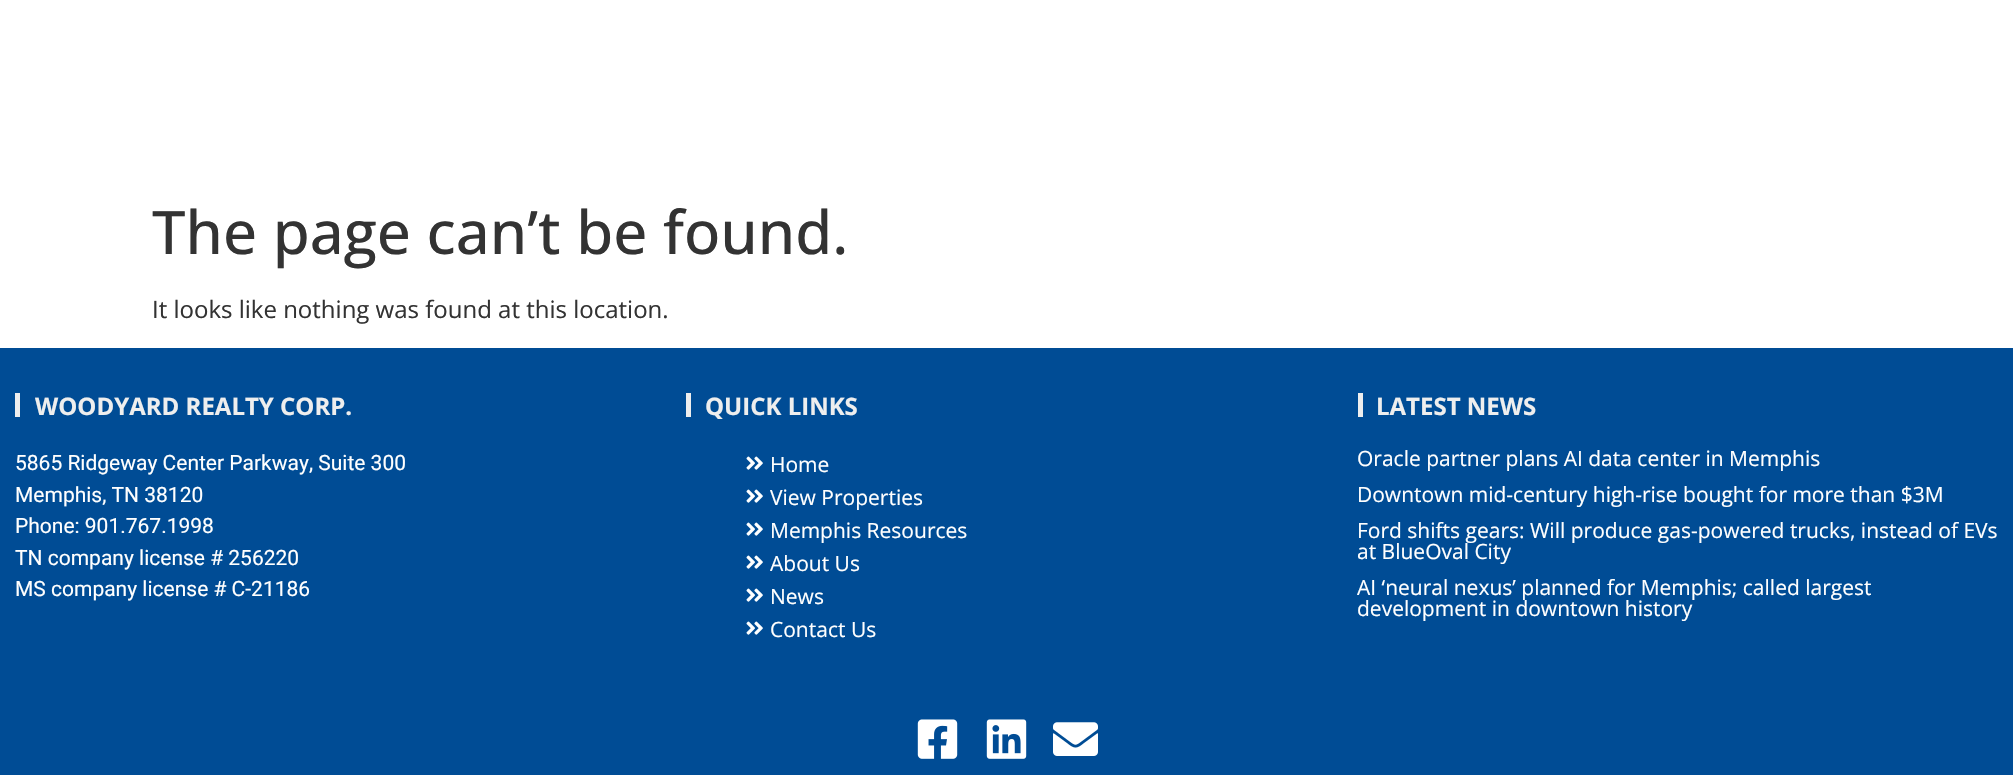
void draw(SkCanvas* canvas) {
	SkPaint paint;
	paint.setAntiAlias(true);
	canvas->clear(0xffffffff);
	SkFont f1(fontMgr->matchFamilyStyle("Open Sans", SkFontStyle(500, SkFontStyle::kNormal_Width, SkFontStyle::kUpright_Slant)), 60);
	f1.setSubpixel(true);
	paint.setColor(0xff333333);
	canvas->drawString("The page can’t be found.", 152, 254, f1, paint);
	SkFont f2(fontMgr->matchFamilyStyle("Open Sans", SkFontStyle::Normal()), 24);
	f2.setSubpixel(true);
	canvas->drawString("It looks like nothing was found at this location.", 152, 318, f2, paint);
	paint.setColor(0xff004c95);
	canvas->drawRect(SkRect::MakeXYWH(0, 348, 2013, 427), paint);
	paint.setColor(0xffeeeeee);
	canvas->drawRect(SkRect::MakeXYWH(15, 393, 5, 24), paint);
	SkFont f3(fontMgr->matchFamilyStyle("Open Sans", SkFontStyle::Bold()), 24);
	f3.setSubpixel(true);
	canvas->drawString("WOODYARD REALTY CORP.", 35, 415, f3, paint);
	SkFont f4(fontMgr->matchFamilyStyle("Roboto", SkFontStyle::Normal()), 21);
	f4.setSubpixel(true);
	paint.setColor(0xffffffff);
	canvas->drawString("5865 Ridgeway Center Parkway, Suite 300", 15, 470, f4, paint);
	canvas->drawString("Memphis, TN 38120", 15, 502, f4, paint);
	canvas->drawString("Phone: 901.767.1998", 15, 533, f4, paint);
	canvas->drawString("TN company license # 256220", 15, 565, f4, paint);
	canvas->drawString("MS company license # C-21186", 15, 596, f4, paint);
	paint.setColor(0xffeeeeee);
	canvas->drawRect(SkRect::MakeXYWH(686, 393, 5, 24), paint);
	canvas->drawString("QUICK LINKS", 705, 415, f3, paint);
	canvas->drawImageRect(SkImages::DeferredFromEncodedData(SkData::MakeFromFileName("img1.png")), SkRect::MakeXYWH(746, 456, 17, 14), SkSamplingOptions());
	SkFont f5(fontMgr->matchFamilyStyle("Open Sans", SkFontStyle::Normal()), 21);
	f5.setSubpixel(true);
	paint.setColor(0xffffffff);
	canvas->drawString("Home", 770, 472, f5, paint);
	canvas->drawImageRect(SkImages::DeferredFromEncodedData(SkData::MakeFromFileName("img1.png")), SkRect::MakeXYWH(746, 489, 17, 14), SkSamplingOptions());
	canvas->drawString("View Properties", 770, 505, f5, paint);
	canvas->drawImageRect(SkImages::DeferredFromEncodedData(SkData::MakeFromFileName("img1.png")), SkRect::MakeXYWH(746, 522, 17, 14), SkSamplingOptions());
	canvas->drawString("Memphis Resources", 770, 538, f5, paint);
	canvas->drawImageRect(SkImages::DeferredFromEncodedData(SkData::MakeFromFileName("img1.png")), SkRect::MakeXYWH(746, 555, 17, 14), SkSamplingOptions());
	canvas->drawString("About Us", 770, 571, f5, paint);
	canvas->drawImageRect(SkImages::DeferredFromEncodedData(SkData::MakeFromFileName("img1.png")), SkRect::MakeXYWH(746, 588, 17, 14), SkSamplingOptions());
	canvas->drawString("News", 770, 604, f5, paint);
	canvas->drawImageRect(SkImages::DeferredFromEncodedData(SkData::MakeFromFileName("img1.png")), SkRect::MakeXYWH(746, 621, 17, 14), SkSamplingOptions());
	canvas->drawString("Contact Us", 770, 637, f5, paint);
	paint.setColor(0xffeeeeee);
	canvas->drawRect(SkRect::MakeXYWH(1358, 393, 5, 24), paint);
	canvas->drawString("LATEST NEWS", 1376, 415, f3, paint);
	paint.setColor(0xffffffff);
	canvas->drawString("Oracle partner plans AI data center in Memphis", 1357, 466, f5, paint);
	canvas->drawString("Downtown mid-century high-rise bought for more than $3M", 1357, 502, f5, paint);
	canvas->drawString("Ford shifts gears: Will produce gas-powered trucks, instead of EVs", 1357, 538, f5, paint);
	canvas->drawString("at BlueOval City", 1357, 559, f5, paint);
	canvas->drawString("AI ‘neural nexus’ planned for Memphis; called largest", 1357, 595, f5, paint);
	canvas->drawString("development in downtown history", 1357, 616, f5, paint);
	canvas->drawImageRect(SkImages::DeferredFromEncodedData(SkData::MakeFromFileName("img2.png")), SkRect::MakeXYWH(917, 719, 41, 40), SkSamplingOptions());
	canvas->drawImageRect(SkImages::DeferredFromEncodedData(SkData::MakeFromFileName("img3.png")), SkRect::MakeXYWH(986, 719, 41, 40), SkSamplingOptions());
	canvas->drawImageRect(SkImages::DeferredFromEncodedData(SkData::MakeFromFileName("img4.png")), SkRect::MakeXYWH(1053, 722, 45, 34), SkSamplingOptions());
}
